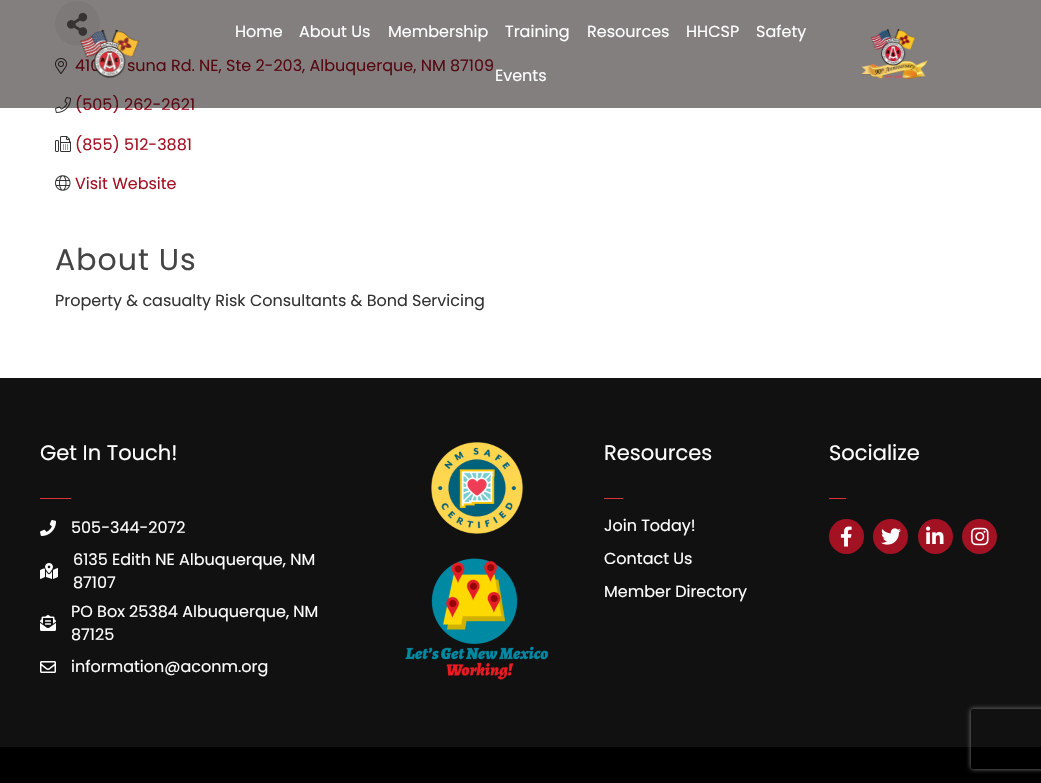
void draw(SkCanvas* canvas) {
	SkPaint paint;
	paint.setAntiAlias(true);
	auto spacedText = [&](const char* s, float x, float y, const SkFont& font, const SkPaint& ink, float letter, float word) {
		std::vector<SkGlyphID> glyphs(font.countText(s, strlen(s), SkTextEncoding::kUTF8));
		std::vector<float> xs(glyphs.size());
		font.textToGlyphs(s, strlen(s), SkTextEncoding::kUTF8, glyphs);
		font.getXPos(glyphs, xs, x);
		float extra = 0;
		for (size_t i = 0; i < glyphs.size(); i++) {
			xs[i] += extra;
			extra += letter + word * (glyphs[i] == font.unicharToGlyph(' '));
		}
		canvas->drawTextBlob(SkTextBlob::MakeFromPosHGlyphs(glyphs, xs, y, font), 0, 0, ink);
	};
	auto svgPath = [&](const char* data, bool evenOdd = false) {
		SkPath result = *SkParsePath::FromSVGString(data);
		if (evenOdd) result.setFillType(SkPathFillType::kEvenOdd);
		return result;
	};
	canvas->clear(0xffffffff);
	paint.setColor(0xfff3f3f3);
	canvas->drawCircle(77.5, 23.5, 22.5, paint);
	canvas->drawImageRect(SkImages::DeferredFromEncodedData(SkData::MakeFromFileName("img3.png")), SkRect::MakeXYWH(67, 12, 21, 24), SkSamplingOptions());
	canvas->drawImageRect(SkImages::DeferredFromEncodedData(SkData::MakeFromFileName("img4.png")), SkRect::MakeXYWH(55, 58, 12, 16), SkSamplingOptions());
	SkFont f1(fontMgr->matchFamilyStyle("Poppins", SkFontStyle::Normal()), 16);
	f1.setSubpixel(true);
	paint.setColor(0xffa31223);
	canvas->drawString("410", 75, 71, f1, paint);
	canvas->drawString("suna Rd. NE, Ste 2-203, Albuquerque, NM 87109", 127, 71, f1, paint);
	canvas->drawImageRect(SkImages::DeferredFromEncodedData(SkData::MakeFromFileName("img5.png")), SkRect::MakeXYWH(55, 97, 16, 16), SkSamplingOptions());
	canvas->drawString("(505) 262-2621", 75, 110, f1, paint);
	paint.setColor(0x800a0000);
	canvas->drawRect(SkRect::MakeXYWH(0, 0, 1041, 108), paint);
	canvas->drawImageRect(SkImages::DeferredFromEncodedData(SkData::MakeFromFileName("img1.png")), SkRect::MakeXYWH(80, 29, 60, 49), SkSamplingOptions());
	paint.setColor(0xffffffff);
	canvas->drawString("Home", 235, 37, f1, paint);
	canvas->drawString("About Us", 299, 37, f1, paint);
	canvas->drawString("Membership", 388, 37, f1, paint);
	canvas->drawString("Training", 505, 37, f1, paint);
	canvas->drawString("Resources", 587, 37, f1, paint);
	canvas->drawString("HHCSP", 686, 37, f1, paint);
	canvas->drawString("Safety", 756, 37, f1, paint);
	canvas->drawString("Events", 495, 81, f1, paint);
	canvas->drawImageRect(SkImages::DeferredFromEncodedData(SkData::MakeFromFileName("img2.png")), SkRect::MakeXYWH(861, 29, 67, 50), SkSamplingOptions());
	canvas->drawImageRect(SkImages::DeferredFromEncodedData(SkData::MakeFromFileName("img6.png")), SkRect::MakeXYWH(55, 136, 16, 16), SkSamplingOptions());
	paint.setColor(0xffa31223);
	canvas->drawString("(855) 512-3881", 75, 150, f1, paint);
	canvas->drawImageRect(SkImages::DeferredFromEncodedData(SkData::MakeFromFileName("img7.png")), SkRect::MakeXYWH(55, 175, 16, 16), SkSamplingOptions());
	canvas->drawString("Visit Website", 75, 189, f1, paint);
	SkFont f2(fontMgr->matchFamilyStyle("Poppins", SkFontStyle::Normal()), 30);
	f2.setSubpixel(true);
	paint.setColor(0xff444444);
	spacedText("About Us", 55, 270, f2, paint, 1, 0);
	paint.setColor(0xff333333);
	canvas->drawString("Property & casualty Risk Consultants & Bond Servicing", 55, 306, f1, paint);
	paint.setColor(0xff111111);
	canvas->drawRect(SkRect::MakeXYWH(0, 378, 1041, 369), paint);
	SkFont f3(fontMgr->matchFamilyStyle("Poppins", SkFontStyle::Normal()), 21);
	f3.setSubpixel(true);
	paint.setColor(0xffffffff);
	canvas->drawString("Get In Touch!", 40, 460, f3, paint);
	paint.setColor(0xffdc333a);
	canvas->drawRect(SkRect::MakeXYWH(40, 498, 31, 1), paint);
	canvas->drawImageRect(SkImages::DeferredFromEncodedData(SkData::MakeFromFileName("img8.png")), SkRect::MakeXYWH(40, 520, 16, 16), SkSamplingOptions());
	paint.setColor(0xffffffff);
	canvas->drawString("505-344-2072", 71, 533, f1, paint);
	canvas->drawImageRect(SkImages::DeferredFromEncodedData(SkData::MakeFromFileName("img9.png")), SkRect::MakeXYWH(40, 563, 18, 16), SkSamplingOptions());
	canvas->drawString("6135 Edith NE Albuquerque, NM", 73, 565, f1, paint);
	canvas->drawString("87107", 73, 588, f1, paint);
	canvas->drawImageRect(SkImages::DeferredFromEncodedData(SkData::MakeFromFileName("img10.png")), SkRect::MakeXYWH(40, 615, 16, 16), SkSamplingOptions());
	canvas->drawString("PO Box 25384 Albuquerque, NM", 71, 617, f1, paint);
	canvas->drawString("87125", 71, 640, f1, paint);
	canvas->drawImageRect(SkImages::DeferredFromEncodedData(SkData::MakeFromFileName("img11.png")), SkRect::MakeXYWH(40, 661, 16, 12), SkSamplingOptions());
	canvas->drawString("information@aconm.org", 71, 672, f1, paint);
	canvas->drawImageRect(SkImages::DeferredFromEncodedData(SkData::MakeFromFileName("img12.png")), SkRect::MakeXYWH(431, 442, 92, 92), SkSamplingOptions());
	canvas->drawImageRect(SkImages::DeferredFromEncodedData(SkData::MakeFromFileName("img13.png")), SkRect::MakeXYWH(405, 558, 144, 122), SkSamplingOptions());
	canvas->drawString("Resources", 604, 460, f3, paint);
	paint.setColor(0xffdc333a);
	canvas->drawRect(SkRect::MakeXYWH(604, 498, 19, 1), paint);
	paint.setColor(0xffffffff);
	canvas->drawString("Join Today!", 604, 531, f1, paint);
	canvas->drawString("Contact Us", 604, 564, f1, paint);
	canvas->drawString("Member Directory", 604, 597, f1, paint);
	canvas->drawString("Socialize", 829, 460, f3, paint);
	paint.setColor(0xffdc333a);
	canvas->drawRect(SkRect::MakeXYWH(829, 498, 17, 1), paint);
	paint.setColor(0xffa31223);
	canvas->drawCircle(846.5, 536.5, 17.5, paint);
	canvas->drawImageRect(SkImages::DeferredFromEncodedData(SkData::MakeFromFileName("img14.png")), SkRect::MakeXYWH(840, 526, 12, 21), SkSamplingOptions());
	canvas->drawCircle(890.5, 536.5, 17.5, paint);
	canvas->drawImageRect(SkImages::DeferredFromEncodedData(SkData::MakeFromFileName("img15.png")), SkRect::MakeXYWH(881, 528, 20, 17), SkSamplingOptions());
	canvas->drawCircle(935.5, 536.5, 17.5, paint);
	canvas->drawImageRect(SkImages::DeferredFromEncodedData(SkData::MakeFromFileName("img16.png")), SkRect::MakeXYWH(926, 526, 18, 18), SkSamplingOptions());
	canvas->drawCircle(979.5, 536.5, 17.5, paint);
	canvas->drawImageRect(SkImages::DeferredFromEncodedData(SkData::MakeFromFileName("img17.png")), SkRect::MakeXYWH(971, 527, 18, 19), SkSamplingOptions());
	paint.setColor(0xff000000);
	canvas->drawRect(SkRect::MakeXYWH(0, 747, 1041, 36), paint);
	canvas->save();
	canvas->clipPath(svgPath("M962 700H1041V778H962ZM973 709H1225C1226 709 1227 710 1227 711V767C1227 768 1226 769 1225 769H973C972 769 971 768 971 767V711C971 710 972 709 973 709Z", true), true);
	paint.setColor(0xff808080);
	paint.setMaskFilter(SkMaskFilter::MakeBlur(kNormal_SkBlurStyle, 2.5));
	canvas->drawRoundRect(SkRect::MakeXYWH(971, 709, 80, 60), 2, 2, paint);
	paint.setMaskFilter(nullptr);
	canvas->restore();
}
